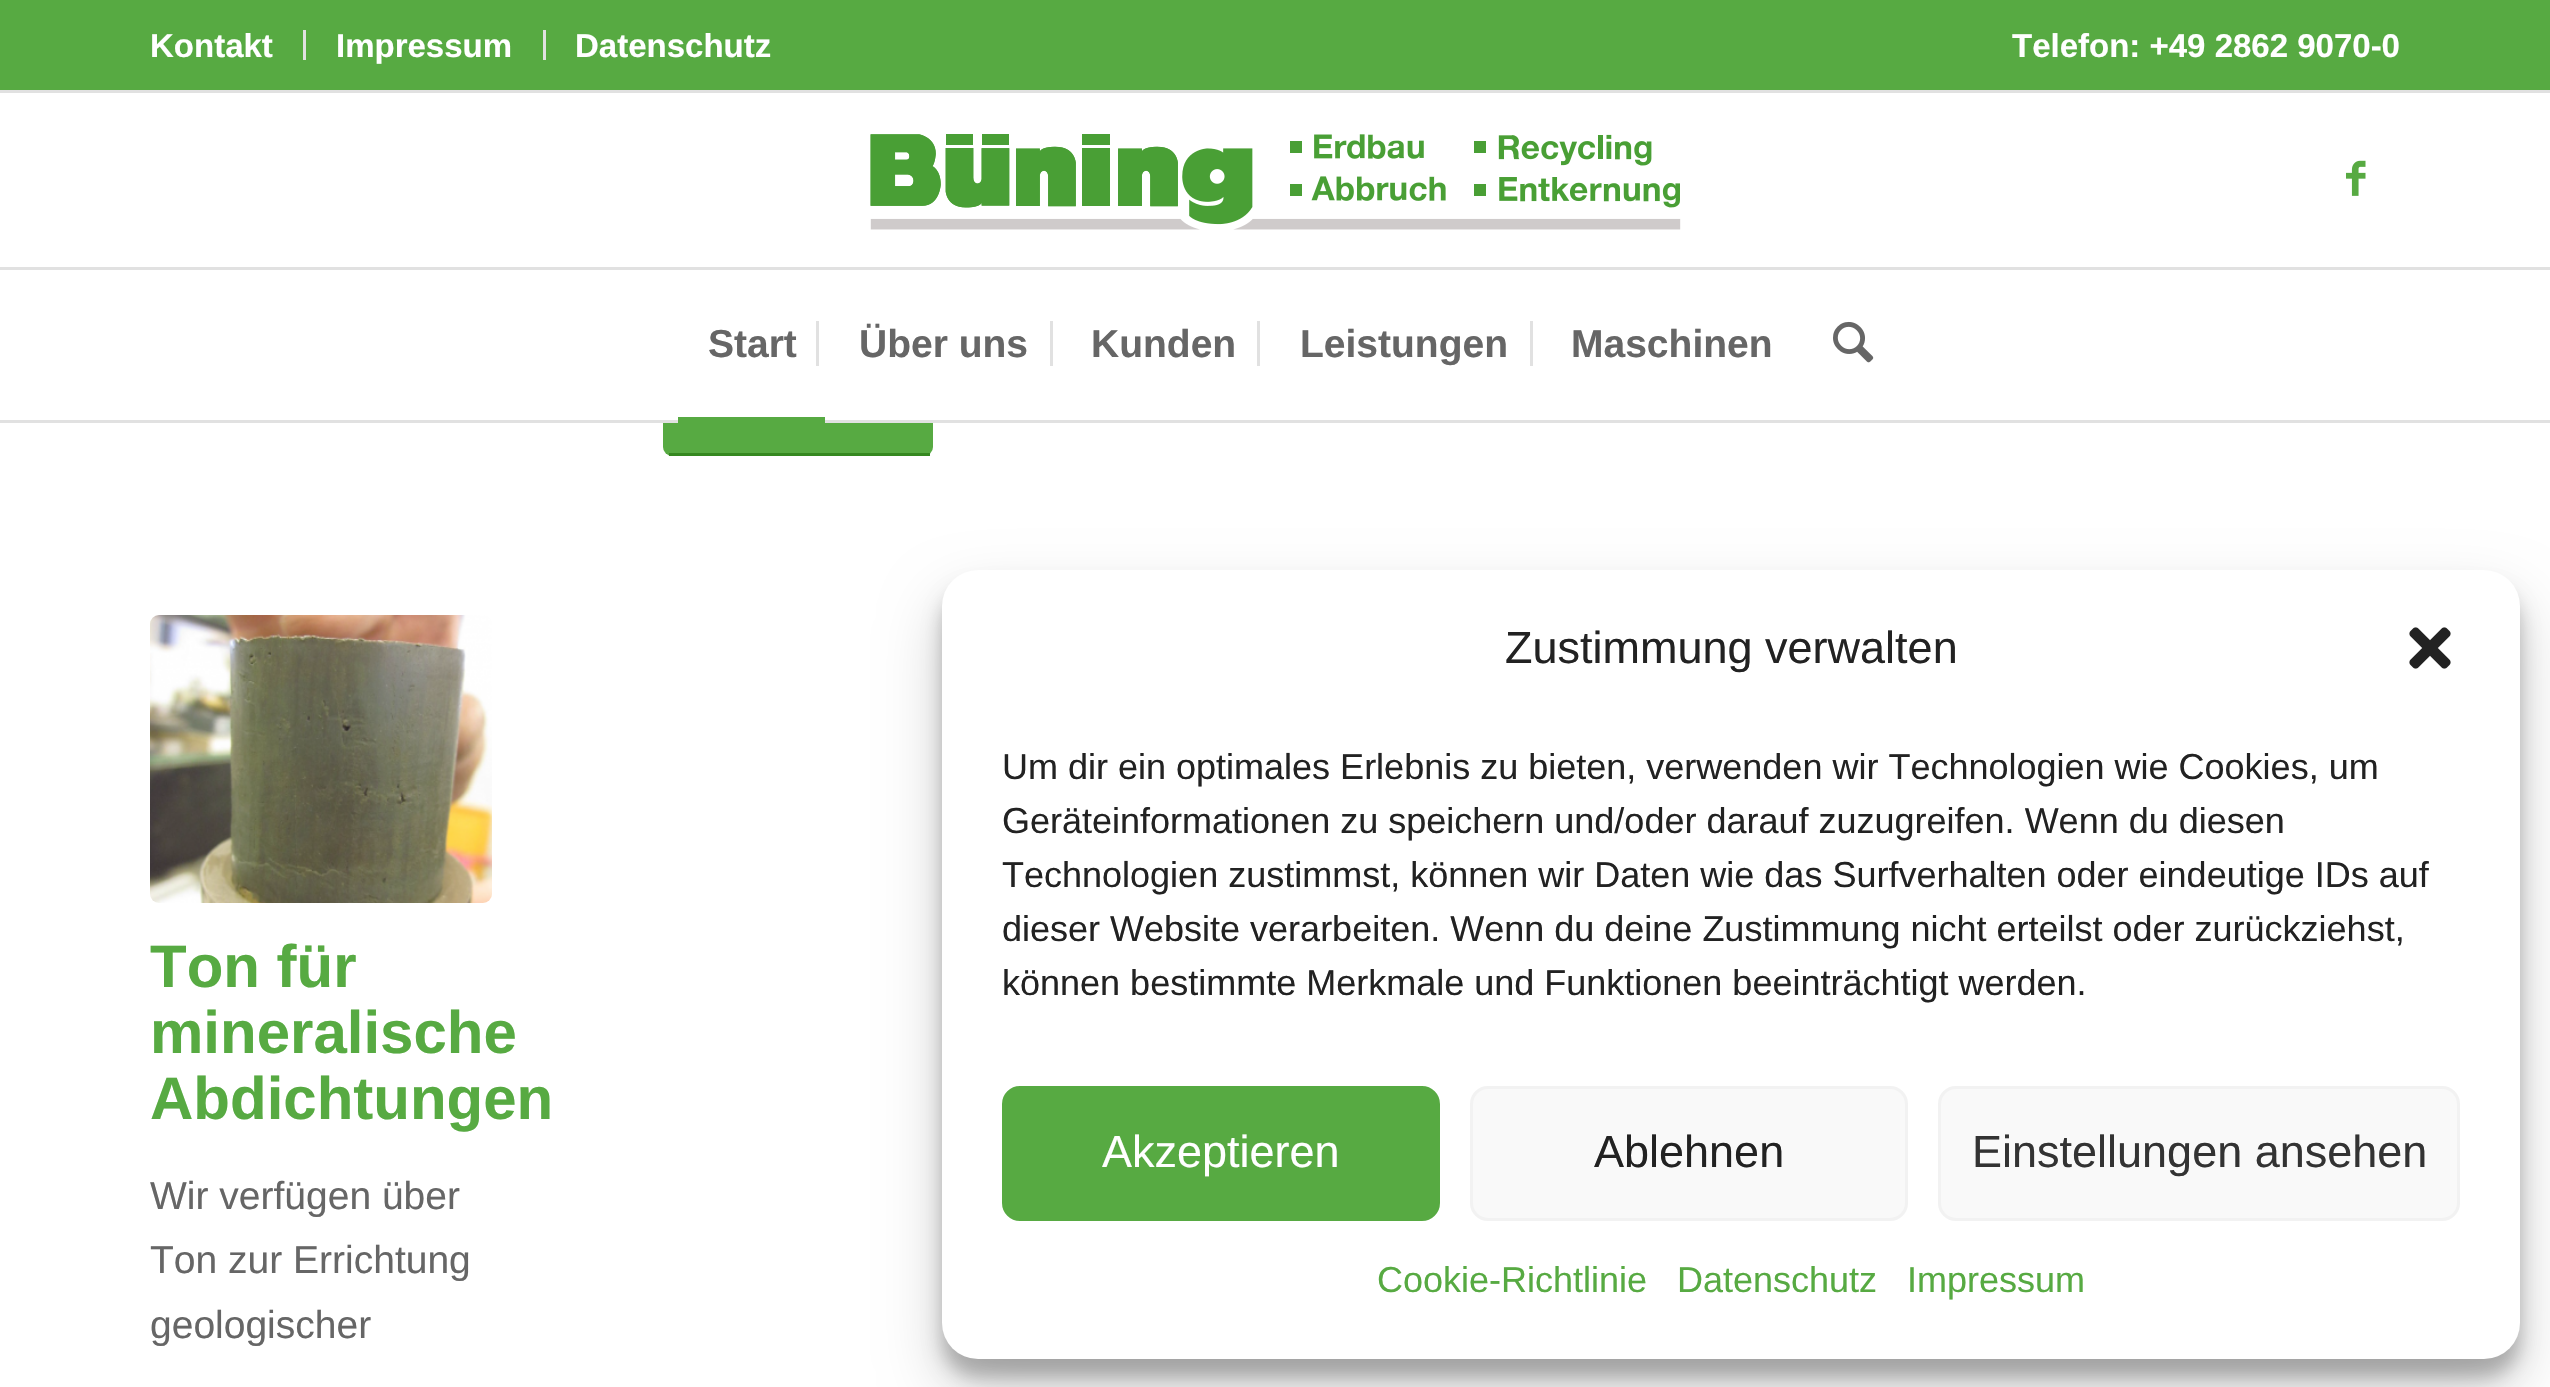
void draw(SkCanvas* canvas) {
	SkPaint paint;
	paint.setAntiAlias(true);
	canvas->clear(0xffffffff);
	paint.setColor(0xff57aa42);
	canvas->drawRect(SkRect::MakeXYWH(0, 0, 2550, 90), paint);
	paint.setColor(0xffe1e1e1);
	canvas->drawRect(SkRect::MakeXYWH(0, 90, 2550, 3), paint);
	canvas->drawRect(SkRect::MakeXYWH(303, 30, 3, 30), paint);
	SkFont f1(fontMgr->matchFamilyStyle("Liberation Sans", SkFontStyle::Bold()), 33);
	f1.setSubpixel(true);
	paint.setColor(0xffffffff);
	canvas->drawString("Kontakt", 150, 57, f1, paint);
	paint.setColor(0xffe1e1e1);
	canvas->drawRect(SkRect::MakeXYWH(543, 30, 3, 30), paint);
	paint.setColor(0xffffffff);
	canvas->drawString("Impressum", 336, 57, f1, paint);
	canvas->drawString("Datenschutz", 575, 57, f1, paint);
	canvas->drawString("Telefon: +49 2862 9070-0", 2012, 57, f1, paint);
	paint.setColor(0xff57aa42);
	canvas->drawRoundRect(SkRect::MakeXYWH(663, 339, 270, 117), 9, 9, paint);
	paint.setColor(0xffe1e1e1);
	canvas->drawRect(SkRect::MakeXYWH(0, 420, 2550, 3), paint);
	canvas->drawImageRect(SkImages::DeferredFromEncodedData(SkData::MakeFromFileName("img1.png")), SkRect::MakeXYWH(870, 134, 811, 96), SkSamplingOptions());
	canvas->drawImageRect(SkImages::DeferredFromEncodedData(SkData::MakeFromFileName("img2.png")), SkRect::MakeXYWH(2346, 160, 20, 36), SkSamplingOptions());
	canvas->drawRect(SkRect::MakeXYWH(0, 267, 2550, 3), paint);
	paint.setColor(0xffffffff);
	canvas->drawRect(SkRect::MakeXYWH(663, 339, 270, 81), paint);
	SkFont f2(fontMgr->matchFamilyStyle("Liberation Sans", SkFontStyle::Bold()), 39);
	f2.setSubpixel(true);
	paint.setColor(0xff666666);
	canvas->drawString("Start", 708, 357, f2, paint);
	paint.setColor(0xff57aa42);
	canvas->drawRect(SkRect::MakeXYWH(678, 417, 147, 6), paint);
	paint.setColor(0xff666666);
	canvas->drawString("Über uns", 859, 357, f2, paint);
	paint.setColor(0xffe1e1e1);
	canvas->drawRect(SkRect::MakeXYWH(816, 321, 3, 45), paint);
	paint.setColor(0xff666666);
	canvas->drawString("Kunden", 1091, 357, f2, paint);
	paint.setColor(0xffe1e1e1);
	canvas->drawRect(SkRect::MakeXYWH(1050, 321, 3, 45), paint);
	paint.setColor(0xff666666);
	canvas->drawString("Leistungen", 1300, 357, f2, paint);
	paint.setColor(0xffe1e1e1);
	canvas->drawRect(SkRect::MakeXYWH(1257, 321, 3, 45), paint);
	paint.setColor(0xff666666);
	canvas->drawString("Maschinen", 1571, 357, f2, paint);
	paint.setColor(0xffe1e1e1);
	canvas->drawRect(SkRect::MakeXYWH(1530, 321, 3, 45), paint);
	canvas->drawImageRect(SkImages::DeferredFromEncodedData(SkData::MakeFromFileName("img3.png")), SkRect::MakeXYWH(1833, 321, 41, 42), SkSamplingOptions());
	paint.setColor(0xff358820);
	canvas->drawRect(SkRect::MakeXYWH(669, 453, 261, 3), paint);
	canvas->drawImageRect(SkImages::DeferredFromEncodedData(SkData::MakeFromFileName("img4.png")), SkRect::MakeXYWH(150, 615, 342, 288), SkSamplingOptions());
	SkFont f3(fontMgr->matchFamilyStyle("Liberation Sans", SkFontStyle::Bold()), 60);
	f3.setSubpixel(true);
	paint.setColor(0xff57aa42);
	canvas->drawString("Ton für", 150, 987, f3, paint);
	canvas->drawString("mineralische", 150, 1053, f3, paint);
	canvas->drawString("Abdichtungen", 150, 1119, f3, paint);
	SkFont f4(fontMgr->matchFamilyStyle("Liberation Sans", SkFontStyle::Normal()), 39);
	f4.setSubpixel(true);
	paint.setColor(0xff666666);
	canvas->drawString("Wir verfügen über", 150, 1209, f4, paint);
	canvas->drawString("Ton zur Errichtung", 150, 1273, f4, paint);
	canvas->drawString("geologischer", 150, 1338, f4, paint);
	paint.setColor(0x3b000000);
	paint.setMaskFilter(SkMaskFilter::MakeBlur(kNormal_SkBlurStyle, 9));
	canvas->drawRoundRect(SkRect::MakeXYWH(942, 588, 1578, 789), 36, 36, paint);
	paint.setMaskFilter(nullptr);
	paint.setColor(0x30000000);
	paint.setMaskFilter(SkMaskFilter::MakeBlur(kNormal_SkBlurStyle, 30));
	canvas->drawRoundRect(SkRect::MakeXYWH(942, 600, 1578, 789), 36, 36, paint);
	paint.setMaskFilter(nullptr);
	paint.setColor(0xffffffff);
	canvas->drawRoundRect(SkRect::MakeXYWH(942, 570, 1578, 789), 36, 36, paint);
	SkFont f5(fontMgr->matchFamilyStyle("Liberation Sans", SkFontStyle::Normal()), 45);
	f5.setSubpixel(true);
	paint.setColor(0xff222222);
	canvas->drawString("Zustimmung verwalten", 1505, 663, f5, paint);
	canvas->drawImageRect(SkImages::DeferredFromEncodedData(SkData::MakeFromFileName("img5.png")), SkRect::MakeXYWH(2409, 627, 42, 42), SkSamplingOptions());
	SkFont f6(fontMgr->matchFamilyStyle("Liberation Sans", SkFontStyle::Normal()), 36);
	f6.setSubpixel(true);
	canvas->drawString("Um dir ein optimales Erlebnis zu bieten, verwenden wir Technologien wie Cookies, um", 1002, 779, f6, paint);
	canvas->drawString("Geräteinformationen zu speichern und/oder darauf zuzugreifen. Wenn du diesen", 1002, 833, f6, paint);
	canvas->drawString("Technologien zustimmst, können wir Daten wie das Surfverhalten oder eindeutige IDs auf", 1002, 887, f6, paint);
	canvas->drawString("dieser Website verarbeiten. Wenn du deine Zustimmung nicht erteilst oder zurückziehst,", 1002, 941, f6, paint);
	canvas->drawString("können bestimmte Merkmale und Funktionen beeinträchtigt werden.", 1002, 995, f6, paint);
	paint.setColor(0xff57aa42);
	canvas->drawRoundRect(SkRect::MakeXYWH(1003.5, 1087.5, 435, 132), 16.5, 16.5, paint);
	paint.setStroke(true);
	paint.setStrokeWidth(3);
	canvas->drawRoundRect(SkRect::MakeXYWH(1003.5, 1087.5, 435, 132), 16.5, 16.5, paint);
	paint.setStroke(false);
	paint.setColor(0xffffffff);
	canvas->drawString("Akzeptieren", 1102, 1167, f5, paint);
	paint.setColor(0xfff9f9f9);
	canvas->drawRoundRect(SkRect::MakeXYWH(1471.5, 1087.5, 435, 132), 16.5, 16.5, paint);
	paint.setStroke(true);
	paint.setColor(0xfff2f2f2);
	canvas->drawRoundRect(SkRect::MakeXYWH(1471.5, 1087.5, 435, 132), 16.5, 16.5, paint);
	paint.setStroke(false);
	paint.setColor(0xff222222);
	canvas->drawString("Ablehnen", 1594, 1167, f5, paint);
	paint.setColor(0xfff9f9f9);
	canvas->drawRoundRect(SkRect::MakeXYWH(1939.5, 1087.5, 519, 132), 16.5, 16.5, paint);
	paint.setStroke(true);
	paint.setColor(0xfff2f2f2);
	canvas->drawRoundRect(SkRect::MakeXYWH(1939.5, 1087.5, 519, 132), 16.5, 16.5, paint);
	paint.setStroke(false);
	paint.setColor(0xff333333);
	canvas->drawString("Einstellungen ansehen", 1972, 1167, f5, paint);
	paint.setColor(0xff57aa42);
	canvas->drawString("Cookie-Richtlinie", 1377, 1292, f6, paint);
	canvas->drawString("Datenschutz", 1677, 1292, f6, paint);
	canvas->drawString("Impressum", 1907, 1292, f6, paint);
}
